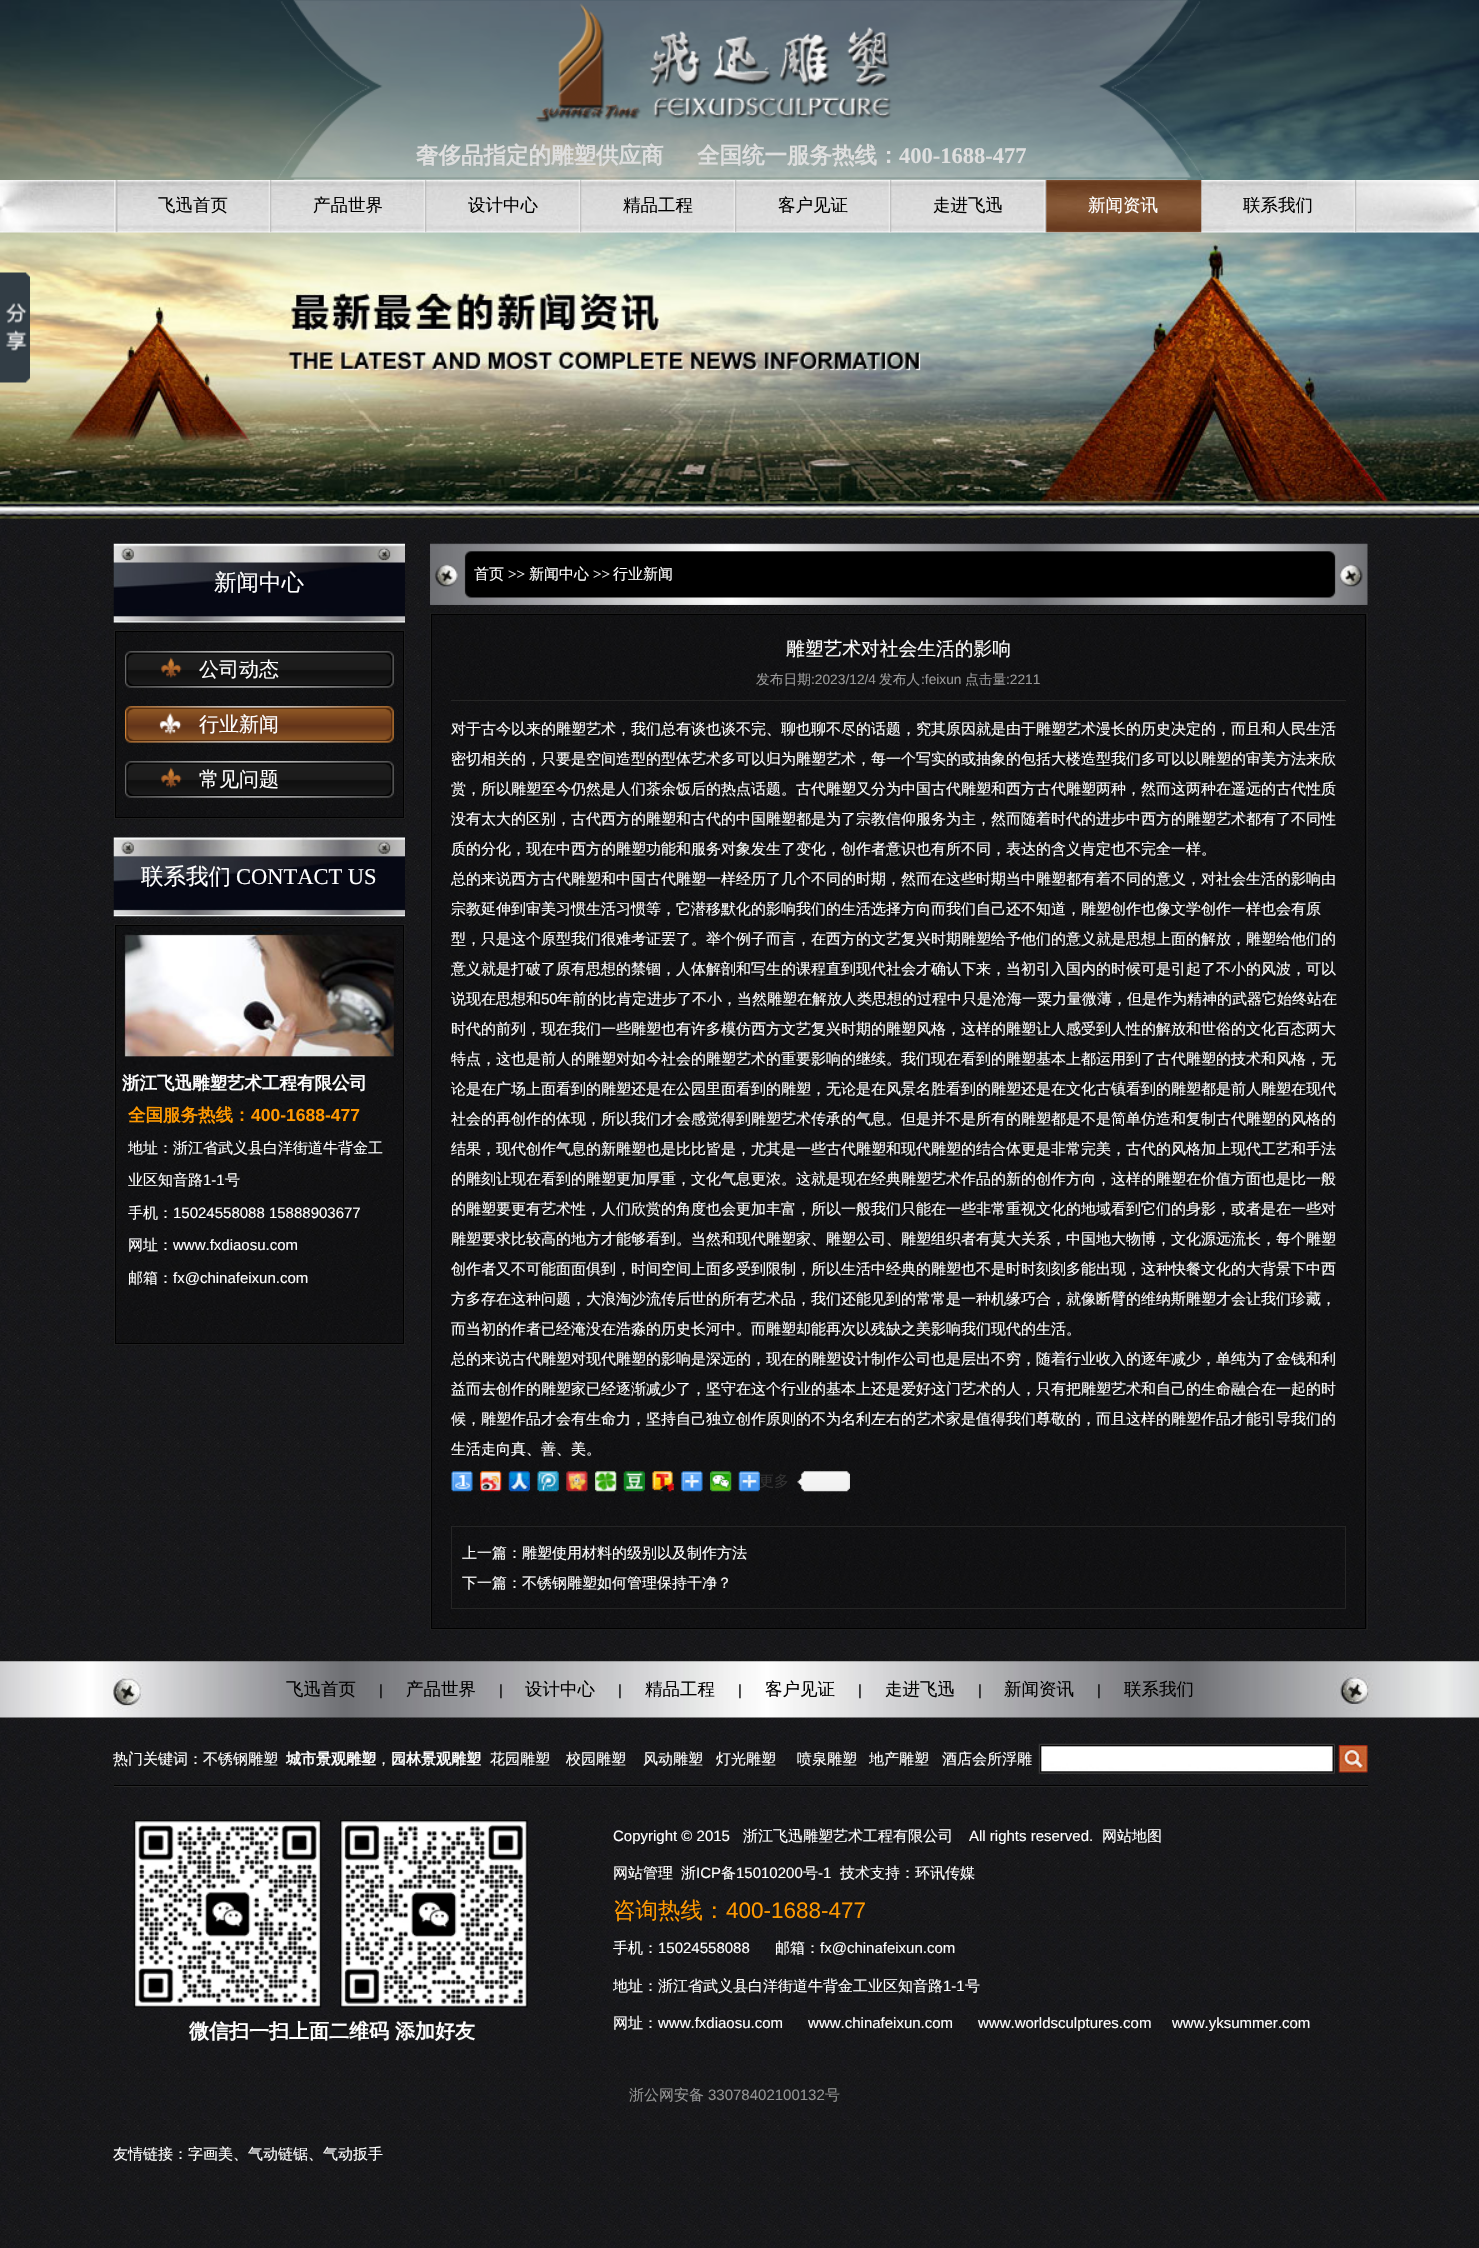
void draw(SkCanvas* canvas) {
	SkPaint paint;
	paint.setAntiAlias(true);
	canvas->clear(0xffffffff);
	canvas->drawImageRect(SkImages::DeferredFromEncodedData(SkData::MakeFromFileName("img1.png")), SkRect::MakeXYWH(0, 518, 1479, 1730), SkSamplingOptions());
	canvas->drawImageRect(SkImages::DeferredFromEncodedData(SkData::MakeFromFileName("img2.png")), SkRect::MakeXYWH(0, 0, 1479, 519), SkSamplingOptions());
	canvas->drawImageRect(SkImages::DeferredFromEncodedData(SkData::MakeFromFileName("img3.png")), SkRect::MakeXYWH(277, 0, 927, 180), SkSamplingOptions());
	SkFont f1(fontMgr->matchFamilyStyle("WenQuanYi Zen Hei", SkFontStyle::Bold()), 22.5);
	f1.setSubpixel(true);
	paint.setColor(0xffdfdfdf);
	canvas->drawString("奢侈品指定的雕塑供应商", 416, 163, f1, paint);
	canvas->drawString("全国统一服务热线：", 697, 163, f1, paint);
	SkFont f2(fontMgr->matchFamilyStyle("Liberation Serif", SkFontStyle::Bold()), 22.5);
	f2.setSubpixel(true);
	canvas->drawString("400-1688-477", 899, 163, f2, paint);
	canvas->drawImageRect(SkImages::DeferredFromEncodedData(SkData::MakeFromFileName("img4.png")), SkRect::MakeXYWH(0, 180, 1479, 53), SkSamplingOptions());
	canvas->drawImageRect(SkImages::DeferredFromEncodedData(SkData::MakeFromFileName("img5.png")), SkRect::MakeXYWH(114, 180, 4, 53), SkSamplingOptions());
	canvas->drawImageRect(SkImages::DeferredFromEncodedData(SkData::MakeFromFileName("img6.png")), SkRect::MakeXYWH(268, 180, 4, 53), SkSamplingOptions());
	SkFont f3(fontMgr->matchFamilyStyle("WenQuanYi Zen Hei", SkFontStyle(500, SkFontStyle::kNormal_Width, SkFontStyle::kUpright_Slant)), 17.5);
	f3.setSubpixel(true);
	paint.setColor(0xff000000);
	canvas->drawString("飞迅首页", 158, 211, f3, paint);
	canvas->drawImageRect(SkImages::DeferredFromEncodedData(SkData::MakeFromFileName("img7.png")), SkRect::MakeXYWH(423, 180, 4, 53), SkSamplingOptions());
	canvas->drawString("产品世界", 313, 211, f3, paint);
	canvas->drawImageRect(SkImages::DeferredFromEncodedData(SkData::MakeFromFileName("img8.png")), SkRect::MakeXYWH(578, 180, 4, 53), SkSamplingOptions());
	canvas->drawString("设计中心", 468, 211, f3, paint);
	canvas->drawImageRect(SkImages::DeferredFromEncodedData(SkData::MakeFromFileName("img9.png")), SkRect::MakeXYWH(733, 180, 4, 53), SkSamplingOptions());
	canvas->drawString("精品工程", 623, 211, f3, paint);
	canvas->drawImageRect(SkImages::DeferredFromEncodedData(SkData::MakeFromFileName("img10.png")), SkRect::MakeXYWH(888, 180, 4, 53), SkSamplingOptions());
	canvas->drawString("客户见证", 778, 211, f3, paint);
	canvas->drawImageRect(SkImages::DeferredFromEncodedData(SkData::MakeFromFileName("img11.png")), SkRect::MakeXYWH(1043, 180, 4, 53), SkSamplingOptions());
	canvas->drawString("走进飞迅", 933, 211, f3, paint);
	canvas->drawImageRect(SkImages::DeferredFromEncodedData(SkData::MakeFromFileName("img12.png")), SkRect::MakeXYWH(1198, 180, 4, 53), SkSamplingOptions());
	canvas->drawImageRect(SkImages::DeferredFromEncodedData(SkData::MakeFromFileName("img13.png")), SkRect::MakeXYWH(1046, 180, 156, 53), SkSamplingOptions());
	paint.setColor(0xffffffff);
	canvas->drawString("新闻资讯", 1088, 211, f3, paint);
	canvas->drawImageRect(SkImages::DeferredFromEncodedData(SkData::MakeFromFileName("img14.png")), SkRect::MakeXYWH(1353, 180, 4, 53), SkSamplingOptions());
	paint.setColor(0xff000000);
	canvas->drawString("联系我们", 1243, 211, f3, paint);
	canvas->drawImageRect(SkImages::DeferredFromEncodedData(SkData::MakeFromFileName("img15.png")), SkRect::MakeXYWH(0, 272, 30, 111), SkSamplingOptions());
	canvas->drawImageRect(SkImages::DeferredFromEncodedData(SkData::MakeFromFileName("img16.png")), SkRect::MakeXYWH(113, 543, 292, 80), SkSamplingOptions());
	SkFont f4(fontMgr->matchFamilyStyle("WenQuanYi Zen Hei", SkFontStyle(500, SkFontStyle::kNormal_Width, SkFontStyle::kUpright_Slant)), 22.5);
	f4.setSubpixel(true);
	paint.setColor(0xffffffff);
	canvas->drawString("新闻中心", 214, 590, f4, paint);
	paint.setStroke(true);
	paint.setStrokeWidth(1);
	paint.setColor(0xff1f1f1f);
	canvas->drawRect(SkRect::MakeXYWH(114.5, 630.5, 290, 188), paint);
	canvas->drawImageRect(SkImages::DeferredFromEncodedData(SkData::MakeFromFileName("img17.png")), SkRect::MakeXYWH(116, 632, 287, 185), SkSamplingOptions());
	paint.setColor(0xff000000);
	canvas->drawRect(SkRect::MakeXYWH(115.5, 631.5, 288, 186), paint);
	canvas->drawImageRect(SkImages::DeferredFromEncodedData(SkData::MakeFromFileName("img18.png")), SkRect::MakeXYWH(125, 651, 269, 37), SkSamplingOptions());
	SkFont f5(fontMgr->matchFamilyStyle("WenQuanYi Zen Hei", SkFontStyle(500, SkFontStyle::kNormal_Width, SkFontStyle::kUpright_Slant)), 20);
	f5.setSubpixel(true);
	paint.setStroke(false);
	paint.setColor(0xffffffff);
	canvas->drawString("公司动态", 199, 676, f5, paint);
	canvas->drawImageRect(SkImages::DeferredFromEncodedData(SkData::MakeFromFileName("img19.png")), SkRect::MakeXYWH(125, 706, 269, 37), SkSamplingOptions());
	canvas->drawString("行业新闻", 199, 731, f5, paint);
	canvas->drawImageRect(SkImages::DeferredFromEncodedData(SkData::MakeFromFileName("img18.png")), SkRect::MakeXYWH(125, 761, 269, 37), SkSamplingOptions());
	canvas->drawString("常见问题", 199, 786, f5, paint);
	canvas->drawImageRect(SkImages::DeferredFromEncodedData(SkData::MakeFromFileName("img20.png")), SkRect::MakeXYWH(113, 837, 292, 80), SkSamplingOptions());
	canvas->drawString("联系我们", 141, 884, f4, paint);
	SkFont f6(fontMgr->matchFamilyStyle("Liberation Serif", SkFontStyle::Normal()), 22.5);
	f6.setSubpixel(true);
	canvas->drawString("CONTACT US", 236, 884, f6, paint);
	paint.setStroke(true);
	paint.setColor(0xff1f1f1f);
	canvas->drawRect(SkRect::MakeXYWH(114.5, 924.5, 290, 420), paint);
	canvas->drawImageRect(SkImages::DeferredFromEncodedData(SkData::MakeFromFileName("img21.png")), SkRect::MakeXYWH(116, 926, 287, 417), SkSamplingOptions());
	paint.setColor(0xff000000);
	canvas->drawRect(SkRect::MakeXYWH(115.5, 925.5, 288, 418), paint);
	canvas->drawImageRect(SkImages::DeferredFromEncodedData(SkData::MakeFromFileName("img22.png")), SkRect::MakeXYWH(122, 926, 274, 143), SkSamplingOptions());
	SkFont f7(fontMgr->matchFamilyStyle("WenQuanYi Zen Hei", SkFontStyle::Bold()), 17.5);
	f7.setSubpixel(true);
	paint.setStroke(false);
	paint.setColor(0xffffffff);
	canvas->drawString("浙江飞迅雕塑艺术工程有限公司", 122, 1089, f7, paint);
	paint.setColor(0xffff9900);
	canvas->drawString("全国服务热线：", 128, 1121, f7, paint);
	SkFont f8(fontMgr->matchFamilyStyle("Liberation Sans", SkFontStyle::Bold()), 17.5);
	f8.setSubpixel(true);
	canvas->drawString("400-1688-477", 251, 1121, f8, paint);
	SkFont f9(fontMgr->matchFamilyStyle("WenQuanYi Zen Hei", SkFontStyle(500, SkFontStyle::kNormal_Width, SkFontStyle::kUpright_Slant)), 15);
	f9.setSubpixel(true);
	paint.setColor(0xffffffff);
	canvas->drawString("地址：浙江省武义县白洋街道牛背金工", 128, 1153, f9, paint);
	canvas->drawString("业区知音路", 128, 1185, f9, paint);
	SkFont f10(fontMgr->matchFamilyStyle("Liberation Sans", SkFontStyle::Normal()), 15);
	f10.setSubpixel(true);
	canvas->drawString("1-1", 203, 1185, f10, paint);
	canvas->drawString("号", 225, 1185, f9, paint);
	canvas->drawString("手机：", 128, 1218, f9, paint);
	canvas->drawString("15024558088 15888903677", 173, 1218, f10, paint);
	canvas->drawString("网址：", 128, 1250, f9, paint);
	canvas->drawString("www.fxdiaosu.com", 173, 1250, f10, paint);
	canvas->drawString("邮箱：", 128, 1283, f9, paint);
	canvas->drawString("fx@chinafeixun.com", 173, 1283, f10, paint);
	canvas->drawImageRect(SkImages::DeferredFromEncodedData(SkData::MakeFromFileName("img23.png")), SkRect::MakeXYWH(430, 543, 938, 62), SkSamplingOptions());
	canvas->drawString("首页", 474, 579, f9, paint);
	SkFont f11(fontMgr->matchFamilyStyle("Liberation Serif", SkFontStyle::Normal()), 15);
	f11.setSubpixel(true);
	canvas->drawString(">>", 508, 579, f11, paint);
	canvas->drawString("新闻中心", 529, 579, f9, paint);
	canvas->drawString(">>", 593, 579, f11, paint);
	canvas->drawString("行业新闻", 613, 579, f9, paint);
	paint.setStroke(true);
	paint.setColor(0xff1f1f1f);
	canvas->drawRect(SkRect::MakeXYWH(430.5, 613.5, 937, 1016), paint);
	canvas->drawImageRect(SkImages::DeferredFromEncodedData(SkData::MakeFromFileName("img24.png")), SkRect::MakeXYWH(431, 613, 936, 1016), SkSamplingOptions());
	paint.setColor(0xff000000);
	canvas->drawRect(SkRect::MakeXYWH(431.5, 614.5, 934, 1014), paint);
	SkFont f12(fontMgr->matchFamilyStyle("WenQuanYi Zen Hei", SkFontStyle(500, SkFontStyle::kNormal_Width, SkFontStyle::kUpright_Slant)), 18.75);
	f12.setSubpixel(true);
	paint.setStroke(false);
	paint.setColor(0xffffffff);
	canvas->drawString("雕塑艺术对社会生活的影响", 786, 655, f12, paint);
	paint.setColor(0xff252525);
	canvas->drawRect(SkRect::MakeXYWH(451, 700, 895, 1), paint);
	SkFont f13(fontMgr->matchFamilyStyle("WenQuanYi Zen Hei", SkFontStyle(500, SkFontStyle::kNormal_Width, SkFontStyle::kUpright_Slant)), 13.75);
	f13.setSubpixel(true);
	paint.setColor(0xff999999);
	canvas->drawString("发布日期", 756, 684, f13, paint);
	SkFont f14(fontMgr->matchFamilyStyle("Liberation Sans", SkFontStyle::Normal()), 13.75);
	f14.setSubpixel(true);
	canvas->drawString(":2023/12/4", 811, 684, f14, paint);
	canvas->drawString("发布人", 879, 684, f13, paint);
	canvas->drawString(":feixun", 921, 684, f14, paint);
	canvas->drawString("点击量", 965, 684, f13, paint);
	canvas->drawString(":2211", 1006, 684, f14, paint);
	paint.setColor(0xffffffff);
	canvas->drawString("对于古今以来的雕塑艺术，我们总有谈也谈不完、聊也聊不尽的话题，究其原因就是由于雕塑艺术漫长的历史决定的，而且和人民生活", 451, 734, f9, paint);
	canvas->drawString("密切相关的，只要是空间造型的型体艺术多可以归为雕塑艺术，每一个写实的或抽象的包括大楼造型我们多可以以雕塑的审美方法来欣", 451, 764, f9, paint);
	canvas->drawString("赏，所以雕塑至今仍然是人们茶余饭后的热点话题。古代雕塑又分为中国古代雕塑和西方古代雕塑两种，然而这两种在遥远的古代性质", 451, 794, f9, paint);
	canvas->drawString("没有太大的区别，古代西方的雕塑和古代的中国雕塑都是为了宗教信仰服务为主，然而随着时代的进步中西方的雕塑艺术都有了不同性", 451, 824, f9, paint);
	canvas->drawString("质的分化，现在中西方的雕塑功能和服务对象发生了变化，创作者意识也有所不同，表达的含义肯定也不完全一样。", 451, 854, f9, paint);
	canvas->drawString("总的来说西方古代雕塑和中国古代雕塑一样经历了几个不同的时期，然而在这些时期当中雕塑都有着不同的意义，对社会生活的影响由", 451, 884, f9, paint);
	canvas->drawString("宗教延伸到审美习惯生活习惯等，它潜移默化的影响我们的生活选择方向而我们自己还不知道，雕塑创作也像文学创作一样也会有原", 451, 914, f9, paint);
	canvas->drawString("型，只是这个原型我们很难考证罢了。举个例子而言，在西方的文艺复兴时期雕塑给予他们的意义就是思想上面的解放，雕塑给他们的", 451, 944, f9, paint);
	canvas->drawString("意义就是打破了原有思想的禁锢，人体解剖和写生的课程直到现代社会才确认下来，当初引入国内的时候可是引起了不小的风波，可以", 451, 974, f9, paint);
	canvas->drawString("说现在思想和", 451, 1004, f9, paint);
	canvas->drawString("50", 541, 1004, f10, paint);
	canvas->drawString("年前的比肯定进步了不小，当然雕塑在解放人类思想的过程中只是沧海一粟力量微薄，但是作为精神的武器它始终站在", 557, 1004, f9, paint);
	canvas->drawString("时代的前列，现在我们一些雕塑也有许多模仿西方文艺复兴时期的雕塑风格，这样的雕塑让人感受到人性的解放和世俗的文化百态两大", 451, 1034, f9, paint);
	canvas->drawString("特点，这也是前人的雕塑对如今社会的雕塑艺术的重要影响的继续。我们现在看到的雕塑基本上都运用到了古代雕塑的技术和风格，无", 451, 1064, f9, paint);
	canvas->drawString("论是在广场上面看到的雕塑还是在公园里面看到的雕塑，无论是在风景名胜看到的雕塑还是在文化古镇看到的雕塑都是前人雕塑在现代", 451, 1094, f9, paint);
	canvas->drawString("社会的再创作的体现，所以我们才会感觉得到雕塑艺术传承的气息。但是并不是所有的雕塑都是不是简单仿造和复制古代雕塑的风格的", 451, 1124, f9, paint);
	canvas->drawString("结果，现代创作气息的新雕塑也是比比皆是，尤其是一些古代雕塑和现代雕塑的结合体更是非常完美，古代的风格加上现代工艺和手法", 451, 1154, f9, paint);
	canvas->drawString("的雕刻让现在看到的雕塑更加厚重，文化气息更浓。这就是现在经典雕塑艺术作品的新的创作方向，这样的雕塑在价值方面也是比一般", 451, 1184, f9, paint);
	canvas->drawString("的雕塑要更有艺术性，人们欣赏的角度也会更加丰富，所以一般我们只能在一些非常重视文化的地域看到它们的身影，或者是在一些对", 451, 1214, f9, paint);
	canvas->drawString("雕塑要求比较高的地方才能够看到。当然和现代雕塑家、雕塑公司、雕塑组织者有莫大关系，中国地大物博，文化源远流长，每个雕塑", 451, 1244, f9, paint);
	canvas->drawString("创作者又不可能面面俱到，时间空间上面多受到限制，所以生活中经典的雕塑也不是时时刻刻多能出现，这种快餐文化的大背景下中西", 451, 1274, f9, paint);
	canvas->drawString("方多存在这种问题，大浪淘沙流传后世的所有艺术品，我们还能见到的常常是一种机缘巧合，就像断臂的维纳斯雕塑才会让我们珍藏，", 451, 1304, f9, paint);
	canvas->drawString("而当初的作者已经淹没在浩淼的历史长河中。而雕塑却能再次以残缺之美影响我们现代的生活。", 451, 1334, f9, paint);
	canvas->drawString("总的来说古代雕塑对现代雕塑的影响是深远的，现在的雕塑设计制作公司也是层出不穷，随着行业收入的逐年减少，单纯为了金钱和利", 451, 1364, f9, paint);
	canvas->drawString("益而去创作的雕塑家已经逐渐减少了，坚守在这个行业的基本上还是爱好这门艺术的人，只有把雕塑艺术和自己的生命融合在一起的时", 451, 1394, f9, paint);
	canvas->drawString("候，雕塑作品才会有生命力，坚持自己独立创作原则的不为名利左右的艺术家是值得我们尊敬的，而且这样的雕塑作品才能引导我们的", 451, 1424, f9, paint);
	canvas->drawString("生活走向真、善、美。", 451, 1454, f9, paint);
	canvas->drawImageRect(SkImages::DeferredFromEncodedData(SkData::MakeFromFileName("img25.png")), SkRect::MakeXYWH(451, 1471, 22, 21), SkSamplingOptions());
	canvas->drawImageRect(SkImages::DeferredFromEncodedData(SkData::MakeFromFileName("img26.png")), SkRect::MakeXYWH(480, 1471, 22, 21), SkSamplingOptions());
	canvas->drawImageRect(SkImages::DeferredFromEncodedData(SkData::MakeFromFileName("img27.png")), SkRect::MakeXYWH(508, 1471, 22, 21), SkSamplingOptions());
	canvas->drawImageRect(SkImages::DeferredFromEncodedData(SkData::MakeFromFileName("img28.png")), SkRect::MakeXYWH(537, 1471, 22, 21), SkSamplingOptions());
	canvas->drawImageRect(SkImages::DeferredFromEncodedData(SkData::MakeFromFileName("img29.png")), SkRect::MakeXYWH(566, 1471, 22, 21), SkSamplingOptions());
	canvas->drawImageRect(SkImages::DeferredFromEncodedData(SkData::MakeFromFileName("img30.png")), SkRect::MakeXYWH(595, 1471, 22, 21), SkSamplingOptions());
	canvas->drawImageRect(SkImages::DeferredFromEncodedData(SkData::MakeFromFileName("img31.png")), SkRect::MakeXYWH(623, 1471, 22, 21), SkSamplingOptions());
	canvas->drawImageRect(SkImages::DeferredFromEncodedData(SkData::MakeFromFileName("img32.png")), SkRect::MakeXYWH(652, 1471, 22, 21), SkSamplingOptions());
	canvas->drawImageRect(SkImages::DeferredFromEncodedData(SkData::MakeFromFileName("img33.png")), SkRect::MakeXYWH(681, 1471, 22, 21), SkSamplingOptions());
	canvas->drawImageRect(SkImages::DeferredFromEncodedData(SkData::MakeFromFileName("img34.png")), SkRect::MakeXYWH(710, 1471, 22, 21), SkSamplingOptions());
	canvas->drawImageRect(SkImages::DeferredFromEncodedData(SkData::MakeFromFileName("img35.png")), SkRect::MakeXYWH(738, 1471, 22, 21), SkSamplingOptions());
	paint.setColor(0xff333333);
	canvas->drawString("更多", 759, 1486, f9, paint);
	canvas->drawImageRect(SkImages::DeferredFromEncodedData(SkData::MakeFromFileName("img36.png")), SkRect::MakeXYWH(797, 1471, 53, 21), SkSamplingOptions());
	paint.setStroke(true);
	paint.setColor(0xff252525);
	canvas->drawRect(SkRect::MakeXYWH(451.5, 1526.5, 894, 82), paint);
	paint.setStroke(false);
	paint.setColor(0xffffffff);
	canvas->drawString("上一篇：雕塑使用材料的级别以及制作方法", 462, 1558, f9, paint);
	canvas->drawString("下一篇：不锈钢雕塑如何管理保持干净？", 462, 1588, f9, paint);
	canvas->drawImageRect(SkImages::DeferredFromEncodedData(SkData::MakeFromFileName("img37.png")), SkRect::MakeXYWH(0, 1661, 1479, 57), SkSamplingOptions());
	paint.setColor(0xff000000);
	canvas->drawString("飞迅首页", 286, 1695, f3, paint);
	canvas->drawString("|", 379, 1695, f10, paint);
	canvas->drawString("产品世界", 406, 1695, f3, paint);
	canvas->drawString("|", 499, 1695, f10, paint);
	canvas->drawString("设计中心", 525, 1695, f3, paint);
	canvas->drawString("|", 618, 1695, f10, paint);
	canvas->drawString("精品工程", 645, 1695, f3, paint);
	canvas->drawString("|", 738, 1695, f10, paint);
	canvas->drawString("客户见证", 765, 1695, f3, paint);
	canvas->drawString("|", 858, 1695, f10, paint);
	canvas->drawString("走进飞迅", 885, 1695, f3, paint);
	canvas->drawString("|", 978, 1695, f10, paint);
	canvas->drawString("新闻资讯", 1004, 1695, f3, paint);
	canvas->drawString("|", 1097, 1695, f10, paint);
	canvas->drawString("联系我们", 1124, 1695, f3, paint);
	canvas->drawRect(SkRect::MakeXYWH(114, 1785, 1254, 1), paint);
	paint.setColor(0xffffffff);
	canvas->drawString("热门关键词：不锈钢雕塑", 113, 1764, f9, paint);
	SkFont f15(fontMgr->matchFamilyStyle("WenQuanYi Zen Hei", SkFontStyle::Bold()), 15);
	f15.setSubpixel(true);
	canvas->drawString("城市景观雕塑", 286, 1764, f15, paint);
	canvas->drawString("，", 376, 1764, f9, paint);
	canvas->drawString("园林景观雕塑", 391, 1764, f15, paint);
	canvas->drawString("花园雕塑", 490, 1764, f9, paint);
	canvas->drawString("校园雕塑", 566, 1764, f9, paint);
	canvas->drawString("风动雕塑", 643, 1764, f9, paint);
	canvas->drawString("灯光雕塑", 716, 1764, f9, paint);
	canvas->drawString("喷泉雕塑", 797, 1764, f9, paint);
	canvas->drawString("地产雕塑", 869, 1764, f9, paint);
	canvas->drawString("酒店会所浮雕", 942, 1764, f9, paint);
	canvas->drawImageRect(SkImages::DeferredFromEncodedData(SkData::MakeFromFileName("img38.png")), SkRect::MakeXYWH(1038, 1743, 297, 31), SkSamplingOptions());
	canvas->drawImageRect(SkImages::DeferredFromEncodedData(SkData::MakeFromFileName("img39.png")), SkRect::MakeXYWH(1338, 1745, 30, 28), SkSamplingOptions());
	paint.setColor(0xff282828);
	canvas->drawRect(SkRect::MakeXYWH(114, 1786, 1254, 1), paint);
	canvas->drawImageRect(SkImages::DeferredFromEncodedData(SkData::MakeFromFileName("img40.png")), SkRect::MakeXYWH(133, 1820, 395, 188), SkSamplingOptions());
	SkFont f16(fontMgr->matchFamilyStyle("WenQuanYi Zen Hei", SkFontStyle::Bold()), 20);
	f16.setSubpixel(true);
	paint.setColor(0xffffffff);
	canvas->drawString("微信", 189, 2038, f16, paint);
	canvas->drawString("扫一扫上面二维码 添加好友", 229, 2038, f16, paint);
	canvas->drawString("Copyright © 2015", 613, 1841, f10, paint);
	canvas->drawString("浙江飞迅雕塑艺术工程有限公司", 743, 1841, f9, paint);
	canvas->drawString("All rights reserved.", 969, 1841, f10, paint);
	canvas->drawString("网站地图", 1102, 1841, f9, paint);
	canvas->drawString("网站管理", 613, 1878, f9, paint);
	canvas->drawString("浙", 681, 1878, f9, paint);
	canvas->drawString("ICP", 696, 1878, f10, paint);
	canvas->drawString("备", 721, 1878, f9, paint);
	canvas->drawString("15010200", 736, 1878, f10, paint);
	canvas->drawString("号", 803, 1878, f9, paint);
	canvas->drawString("-1", 818, 1878, f10, paint);
	canvas->drawString("技术支持：环讯传媒", 840, 1878, f9, paint);
	paint.setColor(0xffff9900);
	canvas->drawString("咨询热线：", 613, 1918, f4, paint);
	SkFont f17(fontMgr->matchFamilyStyle("Liberation Sans", SkFontStyle::Normal()), 22.5);
	f17.setSubpixel(true);
	canvas->drawString("400-1688-477", 726, 1918, f17, paint);
	paint.setColor(0xffffffff);
	canvas->drawString("手机：", 613, 1953, f9, paint);
	canvas->drawString("15024558088", 658, 1953, f10, paint);
	canvas->drawString("邮箱：", 775, 1953, f9, paint);
	canvas->drawString("fx@chinafeixun.com", 820, 1953, f10, paint);
	canvas->drawString("地址：浙江省武义县白洋街道牛背金工业区知音路", 613, 1991, f9, paint);
	canvas->drawString("1-1", 943, 1991, f10, paint);
	canvas->drawString("号", 965, 1991, f9, paint);
	canvas->drawString("网址：", 613, 2028, f9, paint);
	canvas->drawString("www.fxdiaosu.com      www.chinafeixun.com", 658, 2028, f10, paint);
	canvas->drawString("www.worldsculptures.com", 978, 2028, f10, paint);
	canvas->drawString("www.yksummer.com", 1172, 2028, f10, paint);
	paint.setColor(0xff939393);
	canvas->drawString("浙公网安备", 629, 2100, f9, paint);
	canvas->drawString("33078402100132", 708, 2100, f10, paint);
	canvas->drawString("号", 825, 2100, f9, paint);
	paint.setColor(0xffffffff);
	canvas->drawString("友情链接：字画美、气动链锯、气动扳手", 113, 2159, f9, paint);
}
